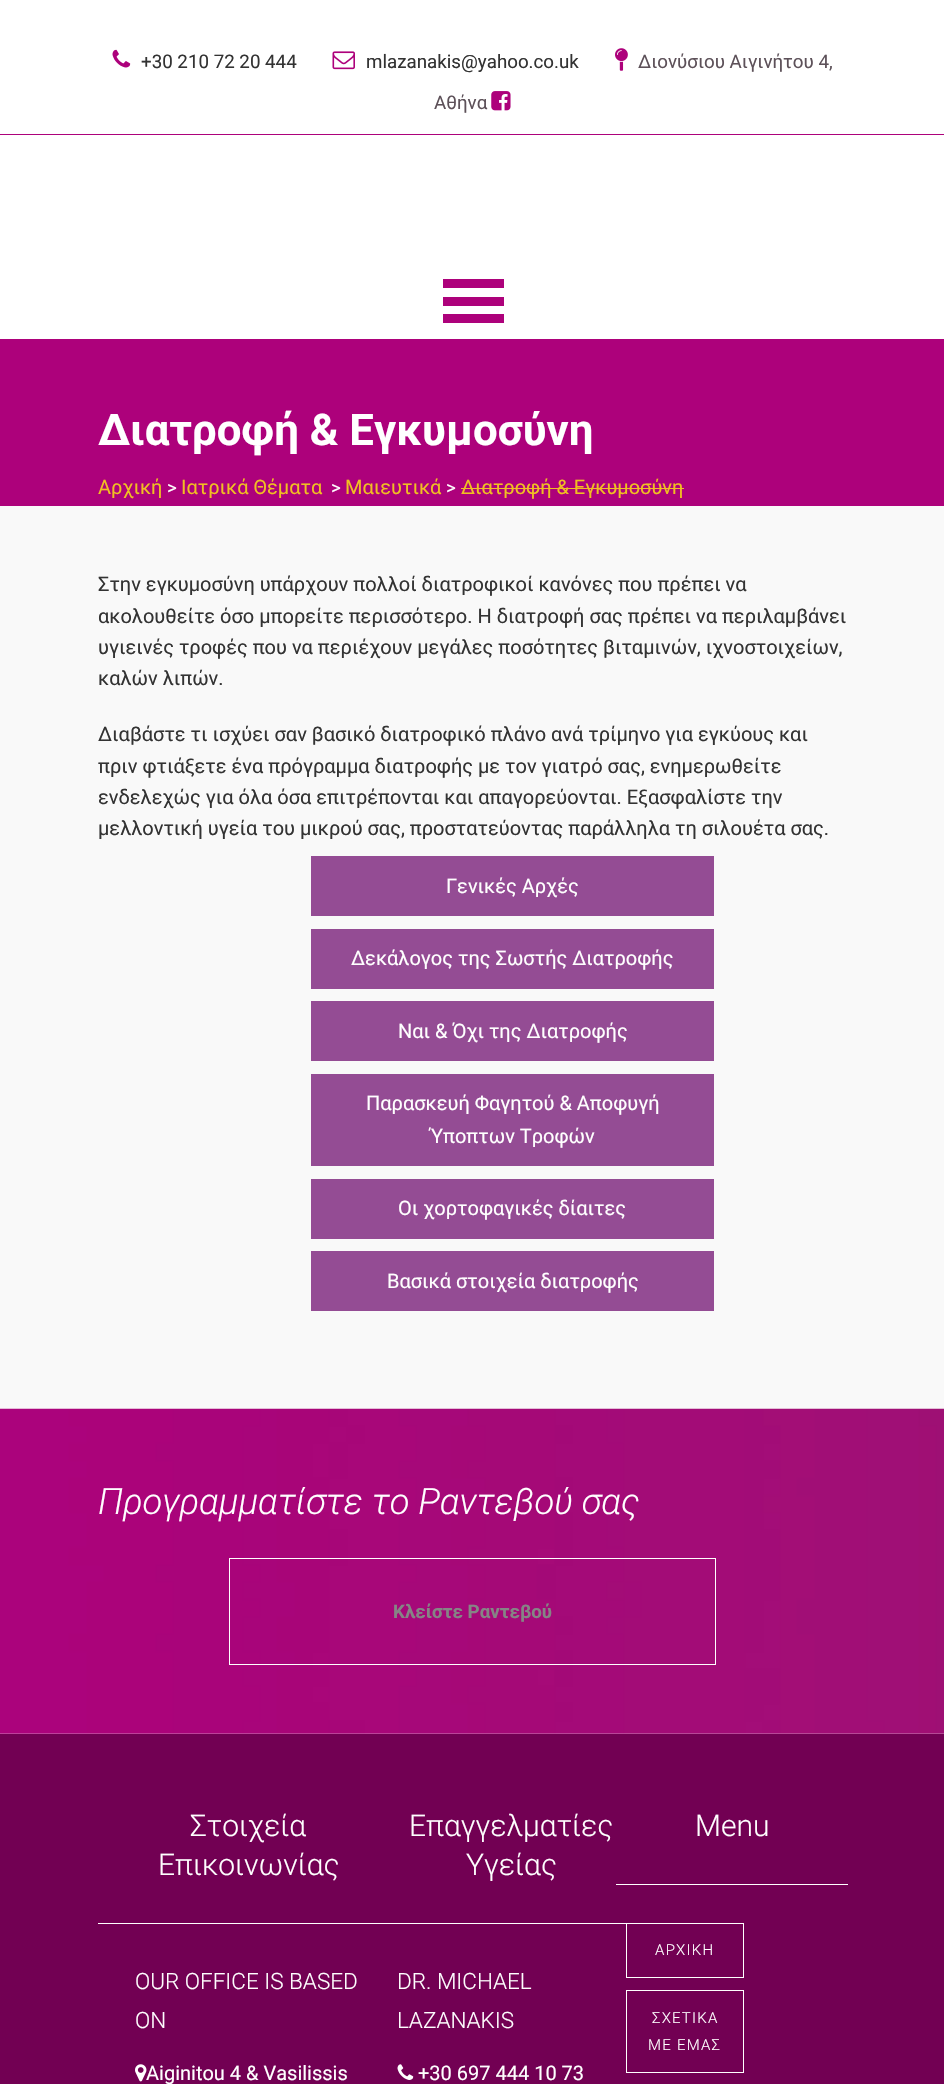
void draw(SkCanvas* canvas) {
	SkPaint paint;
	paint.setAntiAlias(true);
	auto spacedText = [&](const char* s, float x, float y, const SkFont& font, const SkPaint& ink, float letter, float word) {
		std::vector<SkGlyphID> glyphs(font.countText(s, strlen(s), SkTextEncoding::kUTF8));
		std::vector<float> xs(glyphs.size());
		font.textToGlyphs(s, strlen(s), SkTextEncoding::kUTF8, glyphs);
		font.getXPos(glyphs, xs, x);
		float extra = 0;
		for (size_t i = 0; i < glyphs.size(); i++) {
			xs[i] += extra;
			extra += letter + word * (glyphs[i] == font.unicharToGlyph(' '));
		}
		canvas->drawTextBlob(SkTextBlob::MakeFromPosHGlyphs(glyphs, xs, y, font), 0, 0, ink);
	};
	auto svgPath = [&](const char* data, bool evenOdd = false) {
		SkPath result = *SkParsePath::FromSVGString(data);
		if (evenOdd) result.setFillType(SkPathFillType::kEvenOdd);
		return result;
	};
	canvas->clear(0xfff9f9f9);
	paint.setColor(0xffffffff);
	canvas->drawRect(SkRect::MakeXYWH(0, 0, 944, 339), paint);
	paint.setColor(0xffad017b);
	canvas->drawRect(SkRect::MakeXYWH(0, 134, 944, 1), paint);
	canvas->drawImageRect(SkImages::DeferredFromEncodedData(SkData::MakeFromFileName("img1.png")), SkRect::MakeXYWH(112, 49, 19, 19), SkSamplingOptions());
	SkFont f1(fontMgr->matchFamilyStyle("Roboto", SkFontStyle::Normal()), 18.75);
	f1.setSubpixel(true);
	paint.setColor(0xff333333);
	canvas->drawString("+30 210 72 20 444", 141, 68, f1, paint);
	canvas->drawImageRect(SkImages::DeferredFromEncodedData(SkData::MakeFromFileName("img2.png")), SkRect::MakeXYWH(332, 51, 23, 19), SkSamplingOptions());
	canvas->drawString("mlazanakis@yahoo.co.uk", 366, 68, f1, paint);
	canvas->drawImageRect(SkImages::DeferredFromEncodedData(SkData::MakeFromFileName("img3.png")), SkRect::MakeXYWH(615, 48, 13, 23), SkSamplingOptions());
	paint.setColor(0xff5d5159);
	canvas->drawString("Διονύσιου Αιγινήτου 4,", 638, 68, f1, paint);
	canvas->drawString("Αθήνα", 434, 109, f1, paint);
	canvas->drawImageRect(SkImages::DeferredFromEncodedData(SkData::MakeFromFileName("img4.png")), SkRect::MakeXYWH(491, 91, 20, 20), SkSamplingOptions());
	paint.setColor(0xffad017b);
	canvas->drawPath(svgPath("M443 323H504V314H443ZM443 279V288H504V279ZM443 306H504V297H443Z"), paint);
	canvas->drawRect(SkRect::MakeXYWH(0, 339, 944, 167), paint);
	SkFont f2(fontMgr->matchFamilyStyle("Roboto", SkFontStyle::Bold()), 43.75);
	f2.setSubpixel(true);
	paint.setColor(0xffffffff);
	canvas->drawString("Διατροφή & Εγκυμοσύνη", 98, 445, f2, paint);
	SkFont f3(fontMgr->matchFamilyStyle("Roboto", SkFontStyle::Normal()), 20);
	f3.setSubpixel(true);
	paint.setColor(0xfff0bf22);
	canvas->drawString("Αρχική", 98, 494, f3, paint);
	paint.setColor(0xffffffff);
	canvas->drawString(">", 167, 494, f1, paint);
	paint.setColor(0xfff0bf22);
	canvas->drawString("Ιατρικά Θέματα", 181, 494, f3, paint);
	paint.setColor(0xffffffff);
	canvas->drawString(">", 331, 494, f1, paint);
	paint.setColor(0xfff0bf22);
	canvas->drawString("Μαιευτικά", 345, 494, f3, paint);
	paint.setColor(0xffffffff);
	canvas->drawString(">", 446, 494, f1, paint);
	paint.setColor(0xfff0bf22);
	canvas->drawString("Διατροφή & Εγκυμοσύνη", 461, 494, f3, paint);
	canvas->drawRect(SkRect::MakeXYWH(461, 488, 223, 1), paint);
	paint.setColor(0xff333333);
	canvas->drawString("Στην εγκυμοσύνη υπάρχουν πολλοί διατροφικοί κανόνες που πρέπει να", 98, 591, f3, paint);
	canvas->drawString("ακολουθείτε όσο μπορείτε περισσότερο. Η διατροφή σας πρέπει να περιλαμβάνει", 98, 623, f3, paint);
	canvas->drawString("υγιεινές τροφές που να περιέχουν μεγάλες ποσότητες βιταμινών, ιχνοστοιχείων,", 98, 654, f3, paint);
	canvas->drawString("καλών λιπών.", 98, 685, f3, paint);
	canvas->drawString("Διαβάστε τι ισχύει σαν βασικό διατροφικό πλάνο ανά τρίμηνο για εγκύους και", 98, 741, f3, paint);
	canvas->drawString("πριν φτιάξετε ένα πρόγραμμα διατροφής με τον γιατρό σας, ενημερωθείτε", 98, 773, f3, paint);
	canvas->drawString("ενδελεχώς για όλα όσα επιτρέπονται και απαγορεύονται. Εξασφαλίστε την", 98, 804, f3, paint);
	canvas->drawString("μελλοντική υγεία του μικρού σας, προστατεύοντας παράλληλα τη σιλουέτα σας.", 98, 835, f3, paint);
	paint.setColor(0xff944c94);
	canvas->drawRect(SkRect::MakeXYWH(311, 856, 403, 60), paint);
	paint.setColor(0xffffffff);
	canvas->drawString("Γενικές Αρχές", 446, 893, f3, paint);
	paint.setColor(0xff944c94);
	canvas->drawRect(SkRect::MakeXYWH(311, 929, 403, 60), paint);
	paint.setColor(0xffffffff);
	canvas->drawString("Δεκάλογος της Σωστής Διατροφής", 351, 965, f3, paint);
	paint.setColor(0xff944c94);
	canvas->drawRect(SkRect::MakeXYWH(311, 1001, 403, 60), paint);
	paint.setColor(0xffffffff);
	canvas->drawString("Ναι & Όχι της Διατροφής", 398, 1038, f3, paint);
	paint.setColor(0xff944c94);
	canvas->drawRect(SkRect::MakeXYWH(311, 1074, 403, 92), paint);
	paint.setColor(0xffffffff);
	canvas->drawString("Παρασκευή Φαγητού & Αποφυγή", 366, 1110, f3, paint);
	canvas->drawString("Ύποπτων Τροφών", 430, 1143, f3, paint);
	paint.setColor(0xff944c94);
	canvas->drawRect(SkRect::MakeXYWH(311, 1179, 403, 60), paint);
	paint.setColor(0xffffffff);
	canvas->drawString("Οι χορτοφαγικές δίαιτες", 398, 1215, f3, paint);
	paint.setColor(0xff944c94);
	canvas->drawRect(SkRect::MakeXYWH(311, 1251, 403, 60), paint);
	paint.setColor(0xffffffff);
	canvas->drawString("Βασικά στοιχεία διατροφής", 387, 1288, f3, paint);
	canvas->drawImageRect(SkImages::DeferredFromEncodedData(SkData::MakeFromFileName("img5.png")), SkRect::MakeXYWH(0, 1408, 944, 326), SkSamplingOptions());
	SkFont f4(fontMgr->matchFamilyStyle("Roboto", SkFontStyle(300, SkFontStyle::kNormal_Width, SkFontStyle::kItalic_Slant)), 36.25);
	f4.setSubpixel(true);
	canvas->drawString("Προγραμματίστε το Ραντεβού σας", 98, 1514, f4, paint);
	paint.setStroke(true);
	paint.setStrokeWidth(1);
	canvas->drawRect(SkRect::MakeXYWH(229.5, 1558.5, 486, 106), paint);
	SkFont f5(fontMgr->matchFamilyStyle("Roboto", SkFontStyle::Bold()), 18.75);
	f5.setSubpixel(true);
	paint.setStroke(false);
	paint.setColor(0xff858585);
	canvas->drawString("Κλείστε Ραντεβού", 393, 1618, f5, paint);
	paint.setColor(0xff720053);
	canvas->drawRect(SkRect::MakeXYWH(0, 1734, 944, 350), paint);
	SkFont f6(fontMgr->matchFamilyStyle("Roboto", SkFontStyle(300, SkFontStyle::kNormal_Width, SkFontStyle::kUpright_Slant)), 30);
	f6.setSubpixel(true);
	paint.setColor(0xffffffff);
	canvas->drawString("Στοιχεία", 190, 1836, f6, paint);
	canvas->drawString("Επικοινωνίας", 158, 1875, f6, paint);
	canvas->drawRect(SkRect::MakeXYWH(98, 1923, 528, 1), paint);
	SkFont f7(fontMgr->matchFamilyStyle("Roboto", SkFontStyle(300, SkFontStyle::kNormal_Width, SkFontStyle::kUpright_Slant)), 22.5);
	f7.setSubpixel(true);
	canvas->drawString("OUR OFFICE IS BASED", 135, 1989, f7, paint);
	canvas->drawString("ON", 135, 2028, f7, paint);
	canvas->drawImageRect(SkImages::DeferredFromEncodedData(SkData::MakeFromFileName("img6.png")), SkRect::MakeXYWH(135, 2064, 12, 18), SkSamplingOptions());
	canvas->drawString("Aiginitou 4 & Vasilissis", 146, 2080, f3, paint);
	canvas->drawString("Επαγγελματίες", 409, 1836, f6, paint);
	canvas->drawString("Υγείας", 466, 1875, f6, paint);
	canvas->drawString("DR. MICHAEL", 397, 1989, f7, paint);
	canvas->drawString("LAZANAKIS", 397, 2028, f7, paint);
	canvas->drawImageRect(SkImages::DeferredFromEncodedData(SkData::MakeFromFileName("img7.png")), SkRect::MakeXYWH(397, 2064, 17, 16), SkSamplingOptions());
	canvas->drawString("+30 697 444 10 73", 418, 2080, f3, paint);
	canvas->drawString("Menu", 695, 1836, f6, paint);
	canvas->drawRect(SkRect::MakeXYWH(616, 1884, 232, 1), paint);
	paint.setStroke(true);
	canvas->drawRect(SkRect::MakeXYWH(626.5, 1923.5, 117, 54), paint);
	SkFont f8(fontMgr->matchFamilyStyle("Roboto", SkFontStyle(300, SkFontStyle::kNormal_Width, SkFontStyle::kUpright_Slant)), 15);
	f8.setSubpixel(true);
	paint.setStroke(false);
	spacedText("ΑΡΧΙΚΗ", 655, 1955, f8, paint, 1.25, 0);
	paint.setStroke(true);
	canvas->drawRect(SkRect::MakeXYWH(626.5, 1990.5, 117, 82), paint);
	paint.setStroke(false);
	spacedText("ΣΧΕΤΙΚΑ", 652, 2023, f8, paint, 1.25, 0);
	spacedText("ΜΕ ΕΜΑΣ", 648, 2050, f8, paint, 1.25, 0);
}
